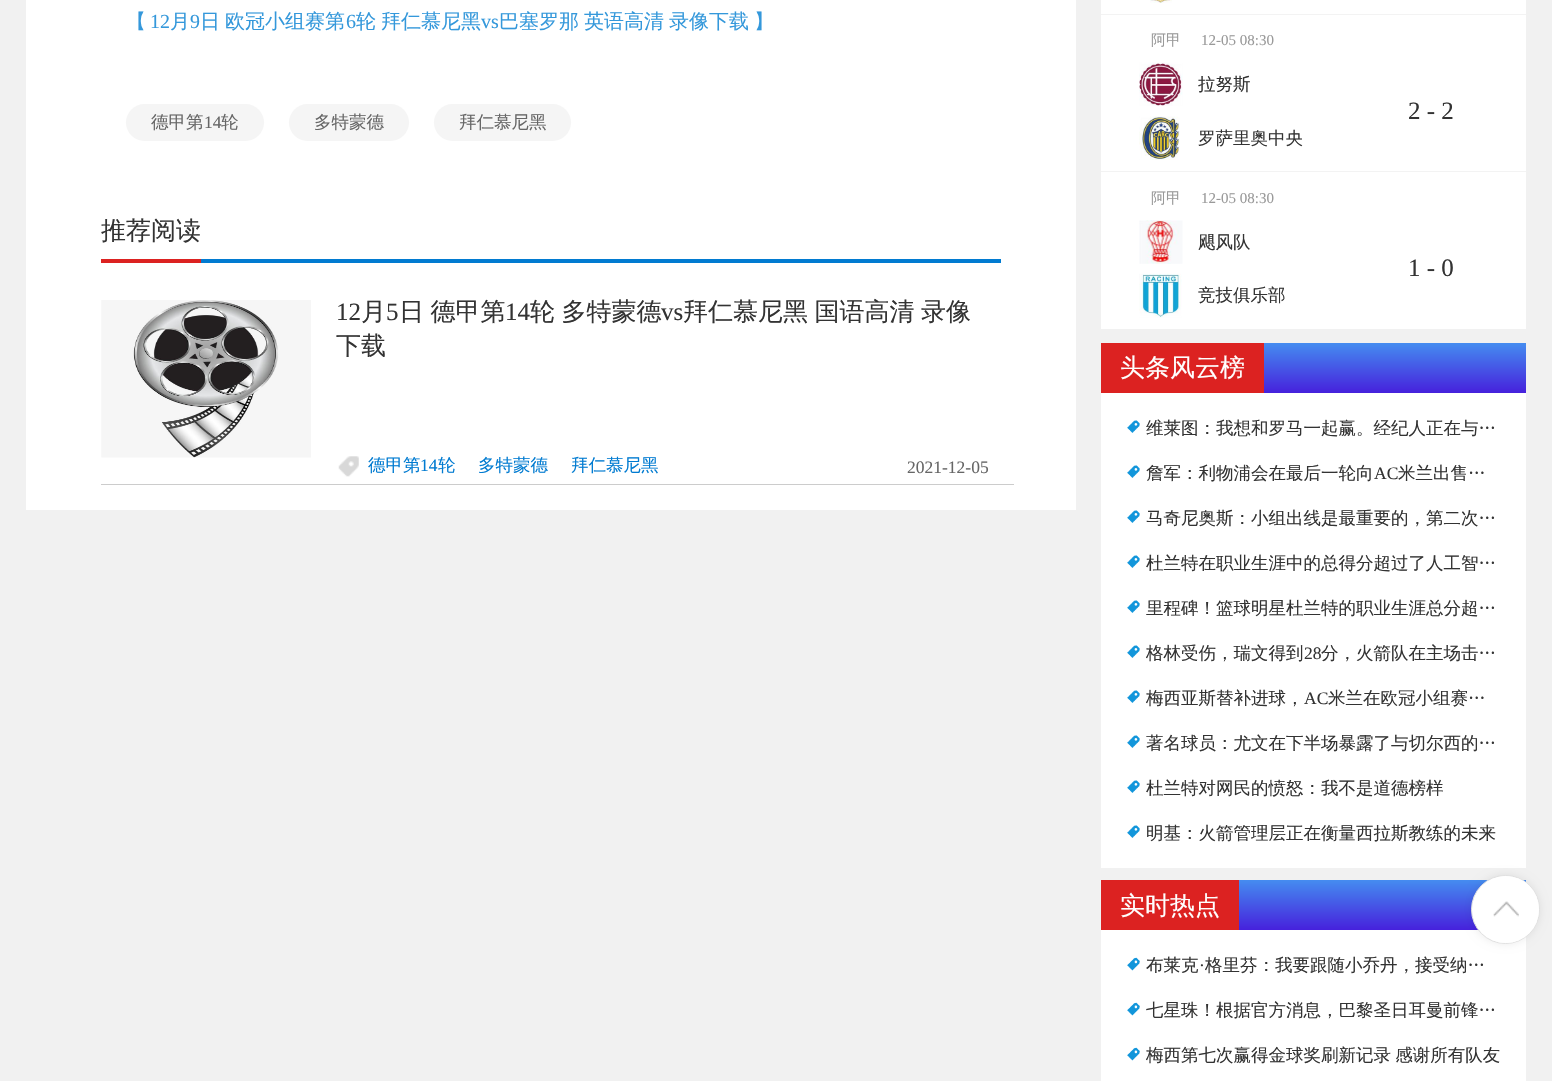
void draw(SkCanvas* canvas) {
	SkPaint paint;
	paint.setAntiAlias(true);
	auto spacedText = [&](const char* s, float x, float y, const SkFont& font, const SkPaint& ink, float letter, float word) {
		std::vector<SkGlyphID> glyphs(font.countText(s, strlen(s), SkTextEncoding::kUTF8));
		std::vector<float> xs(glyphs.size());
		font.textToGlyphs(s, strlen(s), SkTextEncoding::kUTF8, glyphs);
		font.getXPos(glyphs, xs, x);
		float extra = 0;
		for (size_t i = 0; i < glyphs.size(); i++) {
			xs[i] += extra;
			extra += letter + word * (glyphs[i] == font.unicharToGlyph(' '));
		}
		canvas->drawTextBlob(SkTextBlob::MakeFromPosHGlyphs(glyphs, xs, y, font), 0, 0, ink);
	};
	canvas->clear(0xfff1f1f1);
	paint.setColor(0xffffffff);
	canvas->drawRect(SkRect::MakeXYWH(26, 0, 1050, 510), paint);
	SkFont f1(fontMgr->matchFamilyStyle("WenQuanYi Zen Hei", SkFontStyle(500, SkFontStyle::kNormal_Width, SkFontStyle::kUpright_Slant)), 20);
	f1.setSubpixel(true);
	paint.setColor(0xff3498db);
	canvas->drawString("【", 126, 28, f1, paint);
	SkFont f2(fontMgr->matchFamilyStyle("Liberation Serif", SkFontStyle::Normal()), 20);
	f2.setSubpixel(true);
	canvas->drawString("12", 150, 28, f2, paint);
	canvas->drawString("月", 170, 28, f1, paint);
	canvas->drawString("9", 190, 28, f2, paint);
	spacedText("日 欧冠小组赛第", 200, 28, f1, paint, 0, -1);
	canvas->drawString("6", 346, 28, f2, paint);
	spacedText("轮 拜仁慕尼黑", 356, 28, f1, paint, 0, -1);
	canvas->drawString("vs", 481, 28, f2, paint);
	spacedText("巴塞罗那 英语高清 录像下载", 499, 28, f1, paint, 0, -1);
	canvas->drawString("】", 754, 28, f1, paint);
	paint.setColor(0xfff5f5f5);
	canvas->drawRoundRect(SkRect::MakeXYWH(126, 104, 138, 37), 18.5, 18.5, paint);
	SkFont f3(fontMgr->matchFamilyStyle("WenQuanYi Zen Hei", SkFontStyle(500, SkFontStyle::kNormal_Width, SkFontStyle::kUpright_Slant)), 17.5);
	f3.setSubpixel(true);
	paint.setColor(0xff666666);
	canvas->drawString("德甲第", 151, 128, f3, paint);
	SkFont f4(fontMgr->matchFamilyStyle("Liberation Serif", SkFontStyle::Normal()), 17.5);
	f4.setSubpixel(true);
	canvas->drawString("14", 204, 128, f4, paint);
	canvas->drawString("轮", 221, 128, f3, paint);
	paint.setColor(0xfff5f5f5);
	canvas->drawRoundRect(SkRect::MakeXYWH(289, 104, 120, 37), 18.5, 18.5, paint);
	paint.setColor(0xff666666);
	canvas->drawString("多特蒙德", 314, 128, f3, paint);
	paint.setColor(0xfff5f5f5);
	canvas->drawRoundRect(SkRect::MakeXYWH(434, 104, 137, 37), 18.5, 18.5, paint);
	paint.setColor(0xff666666);
	canvas->drawString("拜仁慕尼黑", 459, 128, f3, paint);
	paint.setColor(0xff017bd1);
	canvas->drawRect(SkRect::MakeXYWH(201, 259, 800, 4), paint);
	paint.setColor(0xffdc2221);
	canvas->drawRect(SkRect::MakeXYWH(101, 259, 100, 4), paint);
	SkFont f5(fontMgr->matchFamilyStyle("WenQuanYi Zen Hei", SkFontStyle(500, SkFontStyle::kNormal_Width, SkFontStyle::kUpright_Slant)), 25);
	f5.setSubpixel(true);
	paint.setColor(0xff333333);
	canvas->drawString("推荐阅读", 101, 239, f5, paint);
	paint.setColor(0xffcccccc);
	canvas->drawRect(SkRect::MakeXYWH(101, 484, 913, 1), paint);
	canvas->drawImageRect(SkImages::DeferredFromEncodedData(SkData::MakeFromFileName("img1.png")), SkRect::MakeXYWH(101, 300, 210, 158), SkSamplingOptions());
	SkFont f6(fontMgr->matchFamilyStyle("Liberation Serif", SkFontStyle::Normal()), 25);
	f6.setSubpixel(true);
	paint.setColor(0xff333333);
	canvas->drawString("12", 336, 320, f6, paint);
	canvas->drawString("月", 361, 320, f5, paint);
	canvas->drawString("5", 386, 320, f6, paint);
	spacedText("日 德甲第", 399, 320, f5, paint, 0, -1);
	canvas->drawString("14", 505, 320, f6, paint);
	spacedText("轮 多特蒙德", 530, 320, f5, paint, 0, -1);
	canvas->drawString("vs", 661, 320, f6, paint);
	spacedText("拜仁慕尼黑 国语高清 录像", 683, 320, f5, paint, 0, -1);
	canvas->drawString("下载", 336, 354, f5, paint);
	canvas->drawImageRect(SkImages::DeferredFromEncodedData(SkData::MakeFromFileName("img2.png")), SkRect::MakeXYWH(338, 456, 21, 21), SkSamplingOptions());
	paint.setColor(0xff017bd1);
	canvas->drawString("德甲第", 368, 471, f3, paint);
	canvas->drawString("14", 420, 471, f4, paint);
	canvas->drawString("轮", 438, 471, f3, paint);
	canvas->drawString("多特蒙德", 478, 471, f3, paint);
	canvas->drawString("拜仁慕尼黑", 571, 471, f3, paint);
	paint.setColor(0xff666666);
	canvas->drawString("2021-12-05", 907, 473, f4, paint);
	paint.setColor(0xffffffff);
	canvas->drawRect(SkRect::MakeXYWH(1101, 0, 425, 329), paint);
	paint.setColor(0xfff3f3f3);
	canvas->drawRect(SkRect::MakeXYWH(1101, 14, 425, 1), paint);
	canvas->drawImageRect(SkImages::DeferredFromEncodedData(SkData::MakeFromFileName("img3.png")), SkRect::MakeXYWH(1150, 0, 22, 3), SkSamplingOptions());
	canvas->drawRect(SkRect::MakeXYWH(1101, 171, 425, 1), paint);
	SkFont f7(fontMgr->matchFamilyStyle("WenQuanYi Zen Hei", SkFontStyle(500, SkFontStyle::kNormal_Width, SkFontStyle::kUpright_Slant)), 15);
	f7.setSubpixel(true);
	paint.setColor(0xff999999);
	canvas->drawString("阿甲", 1151, 45, f7, paint);
	SkFont f8(fontMgr->matchFamilyStyle("Liberation Serif", SkFontStyle::Normal()), 15);
	f8.setSubpixel(true);
	canvas->drawString("12-05 08:30", 1201, 45, f8, paint);
	canvas->drawImageRect(SkImages::DeferredFromEncodedData(SkData::MakeFromFileName("img4.png")), SkRect::MakeXYWH(1139, 62, 44, 44), SkSamplingOptions());
	paint.setColor(0xff333333);
	canvas->drawString("拉努斯", 1198, 90, f3, paint);
	canvas->drawImageRect(SkImages::DeferredFromEncodedData(SkData::MakeFromFileName("img5.png")), SkRect::MakeXYWH(1139, 116, 41, 44), SkSamplingOptions());
	canvas->drawString("罗萨里奥中央", 1198, 144, f3, paint);
	canvas->drawString("2 - 2", 1408, 119, f6, paint);
	paint.setColor(0xff999999);
	canvas->drawString("阿甲", 1151, 203, f7, paint);
	canvas->drawString("12-05 08:30", 1201, 203, f8, paint);
	canvas->drawImageRect(SkImages::DeferredFromEncodedData(SkData::MakeFromFileName("img6.png")), SkRect::MakeXYWH(1139, 220, 44, 44), SkSamplingOptions());
	paint.setColor(0xff333333);
	canvas->drawString("飓风队", 1198, 248, f3, paint);
	canvas->drawImageRect(SkImages::DeferredFromEncodedData(SkData::MakeFromFileName("img7.png")), SkRect::MakeXYWH(1139, 273, 43, 45), SkSamplingOptions());
	canvas->drawString("竞技俱乐部", 1198, 301, f3, paint);
	canvas->drawString("1 - 0", 1408, 276, f6, paint);
	paint.setColor(0xffffffff);
	canvas->drawRect(SkRect::MakeXYWH(1101, 393, 425, 475), paint);
	{
		const SkColor colors[] = {0xff458cf0, 0xff4621dc};
		const float stops[] = {0, 1};
		const SkPoint ends[] = {{1314, 343}, {1314, 393}};
		paint.setShader(SkGradientShader::MakeLinear(ends, colors, stops, 2, SkTileMode::kClamp));
		paint.setAlpha(255);
	}
	canvas->drawRect(SkRect::MakeXYWH(1264, 343, 262, 50), paint);
	paint.setShader(nullptr);
	paint.setColor(0xffdc2221);
	canvas->drawRect(SkRect::MakeXYWH(1101, 343, 163, 50), paint);
	paint.setColor(0xffffffff);
	canvas->drawString("头条风云榜", 1120, 376, f5, paint);
	canvas->drawImageRect(SkImages::DeferredFromEncodedData(SkData::MakeFromFileName("img8.png")), SkRect::MakeXYWH(1127, 420, 13, 13), SkSamplingOptions());
	paint.setColor(0xff333333);
	canvas->drawString("维莱图：我想和罗马一起赢。经纪人正在与…", 1146, 434, f3, paint);
	canvas->drawImageRect(SkImages::DeferredFromEncodedData(SkData::MakeFromFileName("img9.png")), SkRect::MakeXYWH(1127, 465, 13, 13), SkSamplingOptions());
	canvas->drawString("詹军：利物浦会在最后一轮向", 1146, 479, f3, paint);
	canvas->drawString("AC", 1374, 479, f4, paint);
	canvas->drawString("米兰出售…", 1398, 479, f3, paint);
	canvas->drawImageRect(SkImages::DeferredFromEncodedData(SkData::MakeFromFileName("img8.png")), SkRect::MakeXYWH(1127, 510, 13, 13), SkSamplingOptions());
	canvas->drawString("马奇尼奥斯：小组出线是最重要的，第二次…", 1146, 524, f3, paint);
	canvas->drawImageRect(SkImages::DeferredFromEncodedData(SkData::MakeFromFileName("img8.png")), SkRect::MakeXYWH(1127, 555, 13, 13), SkSamplingOptions());
	canvas->drawString("杜兰特在职业生涯中的总得分超过了人工智…", 1146, 569, f3, paint);
	canvas->drawImageRect(SkImages::DeferredFromEncodedData(SkData::MakeFromFileName("img8.png")), SkRect::MakeXYWH(1127, 600, 13, 13), SkSamplingOptions());
	canvas->drawString("里程碑！篮球明星杜兰特的职业生涯总分超…", 1146, 614, f3, paint);
	canvas->drawImageRect(SkImages::DeferredFromEncodedData(SkData::MakeFromFileName("img8.png")), SkRect::MakeXYWH(1127, 645, 13, 13), SkSamplingOptions());
	canvas->drawString("格林受伤，瑞文得到", 1146, 659, f3, paint);
	canvas->drawString("28", 1304, 659, f4, paint);
	canvas->drawString("分，火箭队在主场击…", 1321, 659, f3, paint);
	canvas->drawImageRect(SkImages::DeferredFromEncodedData(SkData::MakeFromFileName("img8.png")), SkRect::MakeXYWH(1127, 690, 13, 13), SkSamplingOptions());
	canvas->drawString("梅西亚斯替补进球，", 1146, 704, f3, paint);
	canvas->drawString("AC", 1304, 704, f4, paint);
	canvas->drawString("米兰在欧冠小组赛…", 1328, 704, f3, paint);
	canvas->drawImageRect(SkImages::DeferredFromEncodedData(SkData::MakeFromFileName("img8.png")), SkRect::MakeXYWH(1127, 735, 13, 13), SkSamplingOptions());
	canvas->drawString("著名球员：尤文在下半场暴露了与切尔西的…", 1146, 749, f3, paint);
	canvas->drawImageRect(SkImages::DeferredFromEncodedData(SkData::MakeFromFileName("img8.png")), SkRect::MakeXYWH(1127, 780, 13, 13), SkSamplingOptions());
	canvas->drawString("杜兰特对网民的愤怒：我不是道德榜样", 1146, 794, f3, paint);
	canvas->drawImageRect(SkImages::DeferredFromEncodedData(SkData::MakeFromFileName("img8.png")), SkRect::MakeXYWH(1127, 825, 13, 13), SkSamplingOptions());
	canvas->drawString("明基：火箭管理层正在衡量西拉斯教练的未来", 1146, 839, f3, paint);
	paint.setColor(0xffffffff);
	canvas->drawRect(SkRect::MakeXYWH(1101, 930, 425, 151), paint);
	{
		const SkColor colors[] = {0xff458cf0, 0xff4621dc};
		const float stops[] = {0, 1};
		const SkPoint ends[] = {{1314, 880}, {1314, 930}};
		paint.setShader(SkGradientShader::MakeLinear(ends, colors, stops, 2, SkTileMode::kClamp));
		paint.setAlpha(255);
	}
	canvas->drawRect(SkRect::MakeXYWH(1239, 880, 287, 50), paint);
	paint.setShader(nullptr);
	paint.setColor(0xffdc2221);
	canvas->drawRect(SkRect::MakeXYWH(1101, 880, 138, 50), paint);
	paint.setColor(0xffffffff);
	canvas->drawString("实时热点", 1120, 914, f5, paint);
	canvas->drawImageRect(SkImages::DeferredFromEncodedData(SkData::MakeFromFileName("img10.png")), SkRect::MakeXYWH(1127, 957, 13, 14), SkSamplingOptions());
	paint.setColor(0xff333333);
	canvas->drawString("布莱克", 1146, 971, f3, paint);
	canvas->drawString("·", 1199, 971, f4, paint);
	canvas->drawString("格里芬：我要跟随小乔丹，接受纳…", 1205, 971, f3, paint);
	canvas->drawImageRect(SkImages::DeferredFromEncodedData(SkData::MakeFromFileName("img10.png")), SkRect::MakeXYWH(1127, 1002, 13, 14), SkSamplingOptions());
	canvas->drawString("七星珠！根据官方消息，巴黎圣日耳曼前锋…", 1146, 1016, f3, paint);
	canvas->drawImageRect(SkImages::DeferredFromEncodedData(SkData::MakeFromFileName("img10.png")), SkRect::MakeXYWH(1127, 1047, 13, 14), SkSamplingOptions());
	spacedText("梅西第七次赢得金球奖刷新记录 感谢所有队友", 1146, 1061, f3, paint, 0, -1);
	paint.setColor(0x14000000);
	paint.setMaskFilter(SkMaskFilter::MakeBlur(kNormal_SkBlurStyle, 4.5));
	canvas->drawRoundRect(SkRect::MakeXYWH(1471, 875, 69, 69), 34.5, 34.5, paint);
	paint.setMaskFilter(nullptr);
	paint.setColor(0xffffffff);
	canvas->drawCircle(1505.5, 909.5, 34, paint);
	paint.setStroke(true);
	paint.setStrokeWidth(1);
	paint.setColor(0xffe0e0e0);
	canvas->drawCircle(1505.5, 909.5, 34, paint);
	paint.setStroke(false);
	paint.setColor(0xffffffff);
	canvas->drawRoundRect(SkRect::MakeXYWH(1473, 876, 66, 67), 33, 33, paint);
	canvas->drawImageRect(SkImages::DeferredFromEncodedData(SkData::MakeFromFileName("img11.png")), SkRect::MakeXYWH(1493, 901, 26, 16), SkSamplingOptions());
}
